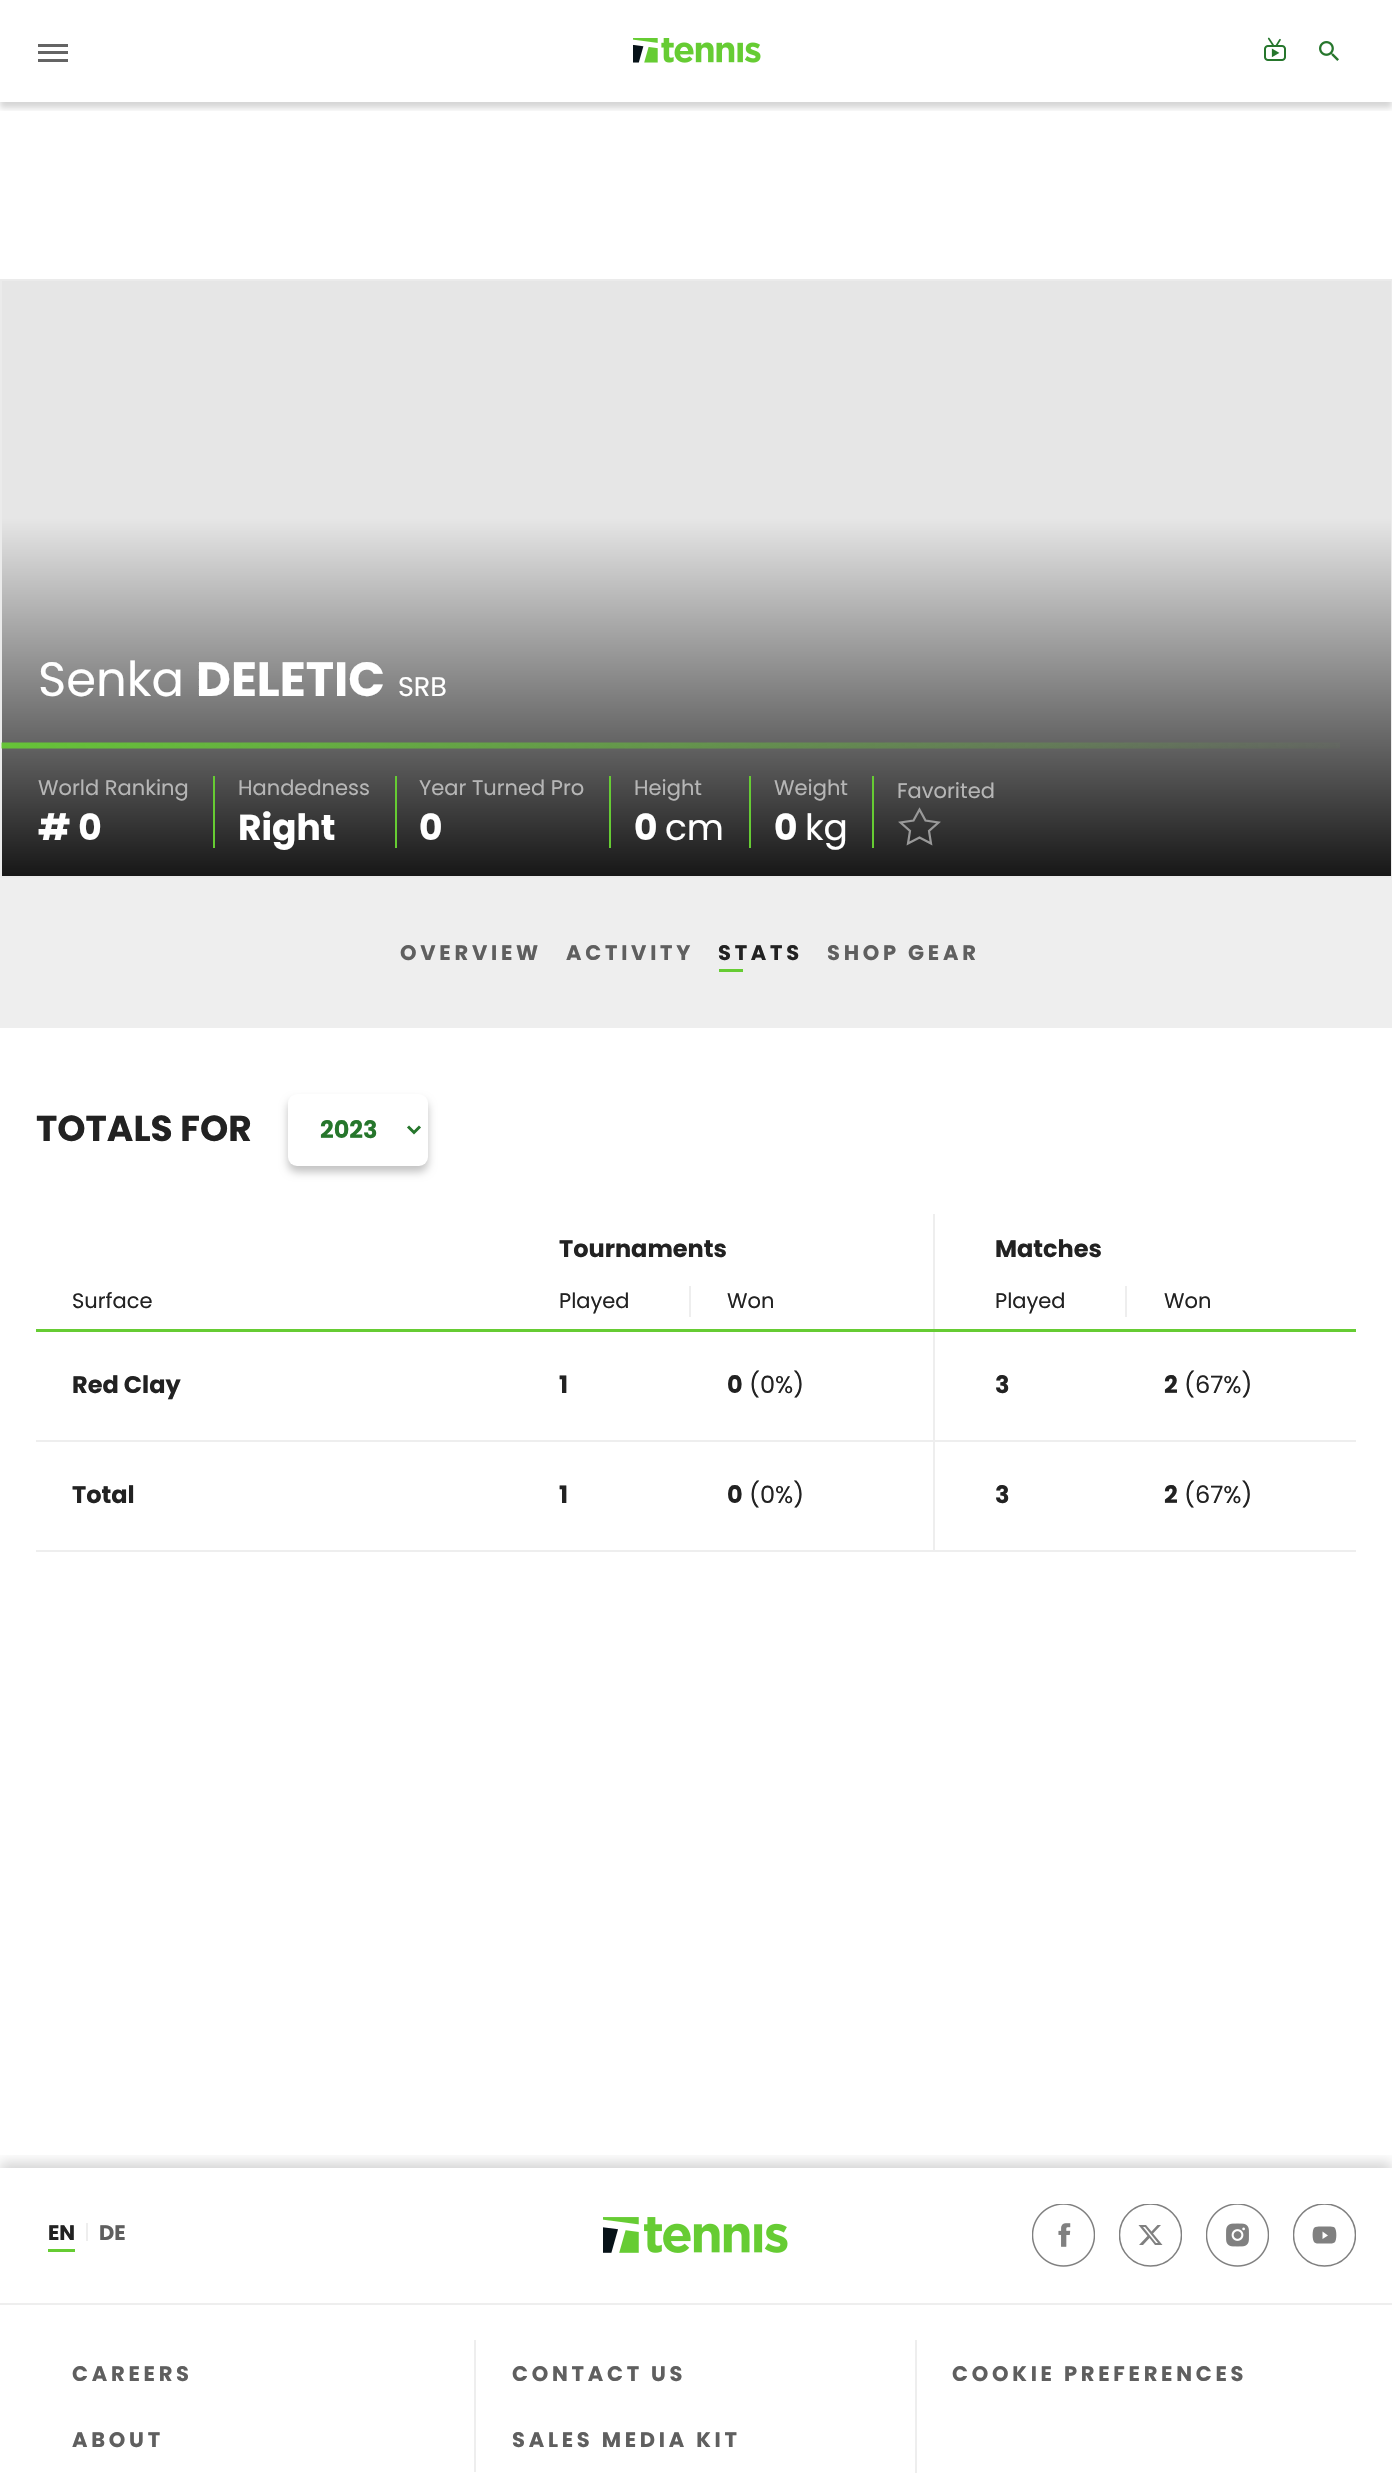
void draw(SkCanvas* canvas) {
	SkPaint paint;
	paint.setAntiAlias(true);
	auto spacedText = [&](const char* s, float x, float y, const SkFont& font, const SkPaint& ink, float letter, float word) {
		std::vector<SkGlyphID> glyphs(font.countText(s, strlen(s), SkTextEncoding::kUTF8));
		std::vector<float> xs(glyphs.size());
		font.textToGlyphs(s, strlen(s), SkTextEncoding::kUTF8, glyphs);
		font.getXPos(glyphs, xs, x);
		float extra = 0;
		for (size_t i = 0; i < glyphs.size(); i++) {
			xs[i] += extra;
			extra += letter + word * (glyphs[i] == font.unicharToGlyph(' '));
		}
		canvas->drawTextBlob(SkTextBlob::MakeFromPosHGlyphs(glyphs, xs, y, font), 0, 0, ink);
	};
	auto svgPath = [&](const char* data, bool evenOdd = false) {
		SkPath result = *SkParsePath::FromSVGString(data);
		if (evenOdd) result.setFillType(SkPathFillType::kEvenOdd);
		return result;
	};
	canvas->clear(0xffffffff);
	canvas->save();
	canvas->clipRect(SkRect::MakeXYWH(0, 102, 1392, 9));
	paint.setColor(0x29000000);
	paint.setMaskFilter(SkMaskFilter::MakeBlur(kNormal_SkBlurStyle, 3));
	canvas->drawRect(SkRect::MakeXYWH(0, 6, 1392, 102), paint);
	paint.setMaskFilter(nullptr);
	canvas->restore();
	paint.setColor(0xff646464);
	canvas->drawRect(SkRect::MakeXYWH(38, 44, 30, 3), paint);
	canvas->drawRect(SkRect::MakeXYWH(38, 51, 30, 3), paint);
	canvas->drawRect(SkRect::MakeXYWH(38, 59, 30, 3), paint);
	canvas->drawImageRect(SkImages::DeferredFromEncodedData(SkData::MakeFromFileName("img1.png")), SkRect::MakeXYWH(633, 38, 128, 25), SkSamplingOptions());
	canvas->drawImageRect(SkImages::DeferredFromEncodedData(SkData::MakeFromFileName("img2.png")), SkRect::MakeXYWH(1264, 37, 22, 24), SkSamplingOptions());
	canvas->drawImageRect(SkImages::DeferredFromEncodedData(SkData::MakeFromFileName("img3.png")), SkRect::MakeXYWH(1319, 41, 20, 20), SkSamplingOptions());
	paint.setStroke(true);
	paint.setStrokeWidth(2);
	paint.setColor(0xffebebeb);
	canvas->drawRect(SkRect::MakeXYWH(1, 280, 1390, 597), paint);
	paint.setStroke(false);
	{
		const SkColor colors[] = {0xffe6e6e6, 0xffe6e6e6, 0xff171717};
		const float stops[] = {0, 0.4, 1};
		const SkPoint ends[] = {{696, 280}, {696, 876}};
		paint.setShader(SkGradientShader::MakeLinear(ends, colors, stops, 3, SkTileMode::kClamp));
		paint.setAlpha(255);
	}
	canvas->drawRect(SkRect::MakeXYWH(2, 281, 1389, 595), paint);
	SkFont f1(fontMgr->matchFamilyStyle("Poppins", SkFontStyle::Normal()), 48);
	f1.setSubpixel(true);
	paint.setShader(nullptr);
	paint.setColor(0xffffffff);
	canvas->drawString("Senka", 38, 696, f1, paint);
	SkFont f2(fontMgr->matchFamilyStyle("Poppins", SkFontStyle::Bold()), 48);
	f2.setSubpixel(true);
	canvas->drawString("DELETIC", 196, 696, f2, paint);
	SkFont f3(fontMgr->matchFamilyStyle("Poppins", SkFontStyle::Normal()), 27);
	f3.setSubpixel(true);
	canvas->drawString("SRB", 398, 696, f3, paint);
	canvas->drawImageRect(SkImages::DeferredFromEncodedData(SkData::MakeFromFileName("img4.png")), SkRect::MakeXYWH(1, 742, 1339, 7), SkSamplingOptions());
	SkFont f4(fontMgr->matchFamilyStyle("Poppins", SkFontStyle::Normal()), 21);
	f4.setSubpixel(true);
	paint.setColor(0xffb6b6b6);
	canvas->drawString("World Ranking", 38, 795, f4, paint);
	SkFont f5(fontMgr->matchFamilyStyle("Poppins", SkFontStyle::Bold()), 36);
	f5.setSubpixel(true);
	paint.setColor(0xffffffff);
	canvas->drawString("# 0", 38, 840, f5, paint);
	paint.setColor(0xff66cc33);
	canvas->drawRect(SkRect::MakeXYWH(213, 776, 2, 72), paint);
	paint.setColor(0xffb6b6b6);
	canvas->drawString("Handedness", 238, 795, f4, paint);
	paint.setColor(0xffffffff);
	canvas->drawString("Right", 238, 840, f5, paint);
	paint.setColor(0xff66cc33);
	canvas->drawRect(SkRect::MakeXYWH(395, 776, 2, 72), paint);
	paint.setColor(0xffb6b6b6);
	canvas->drawString("Year Turned Pro", 419, 795, f4, paint);
	paint.setColor(0xffffffff);
	canvas->drawString("0", 419, 840, f5, paint);
	paint.setColor(0xff66cc33);
	canvas->drawRect(SkRect::MakeXYWH(609, 776, 2, 72), paint);
	paint.setColor(0xffb6b6b6);
	canvas->drawString("Height", 634, 795, f4, paint);
	paint.setColor(0xffffffff);
	canvas->drawString("0", 634, 840, f5, paint);
	SkFont f6(fontMgr->matchFamilyStyle("Poppins", SkFontStyle::Normal()), 36);
	f6.setSubpixel(true);
	canvas->drawString("cm", 665, 840, f6, paint);
	paint.setColor(0xff66cc33);
	canvas->drawRect(SkRect::MakeXYWH(749, 776, 2, 72), paint);
	paint.setColor(0xffb6b6b6);
	canvas->drawString("Weight", 774, 795, f4, paint);
	paint.setColor(0xffffffff);
	canvas->drawString("0", 774, 840, f5, paint);
	canvas->drawString("kg", 805, 840, f6, paint);
	paint.setColor(0xff66cc33);
	canvas->drawRect(SkRect::MakeXYWH(872, 776, 2, 72), paint);
	paint.setColor(0xffb6b6b6);
	canvas->drawString("Favorited", 897, 798, f4, paint);
	paint.setStroke(true);
	paint.setStrokeWidth(2.2);
	paint.setColor(0xff999999);
	canvas->drawPath(svgPath("M919.5 809.5L925.5 820.5L938.5 822.5L929 831L931 843.5L919.5 837.5L908 843.5L910 831L900.5 822.5L913.5 820.5Z"), paint);
	paint.setStroke(false);
	paint.setColor(0xffeeeeee);
	canvas->drawRect(SkRect::MakeXYWH(0, 878, 1392, 150), paint);
	SkFont f7(fontMgr->matchFamilyStyle("Poppins", SkFontStyle::Bold()), 21);
	f7.setSubpixel(true);
	paint.setColor(0xff5f5f5f);
	spacedText("OVERVIEW", 400, 960, f7, paint, 3.75, 0);
	spacedText("ACTIVITY", 566, 960, f7, paint, 3.75, 0);
	paint.setColor(0xff222222);
	spacedText("STATS", 718, 960, f7, paint, 3.75, 0);
	paint.setColor(0xff66cc33);
	canvas->drawRect(SkRect::MakeXYWH(719, 969, 24, 3), paint);
	paint.setColor(0xff5f5f5f);
	spacedText("SHOP GEAR", 827, 960, f7, paint, 3.75, 0);
	paint.setColor(0xff222222);
	canvas->drawString("TOTALS FOR", 36, 1141, f5, paint);
	paint.setColor(0x3d000000);
	paint.setMaskFilter(SkMaskFilter::MakeBlur(kNormal_SkBlurStyle, 4.5));
	canvas->drawRoundRect(SkRect::MakeXYWH(288, 1100, 140, 72), 9, 9, paint);
	paint.setMaskFilter(nullptr);
	paint.setColor(0xffffffff);
	canvas->drawRoundRect(SkRect::MakeXYWH(288, 1094, 140, 72), 9, 9, paint);
	paint.setStroke(true);
	paint.setStrokeWidth(3);
	paint.setColor(0xff26762c);
	canvas->drawPath(svgPath("M408 1126.5L414 1132.5L420 1126.5"), paint);
	SkFont f8(fontMgr->matchFamilyStyle("Poppins", SkFontStyle::Bold()), 24);
	f8.setSubpixel(true);
	paint.setStroke(false);
	canvas->drawString("2023", 320, 1138, f8, paint);
	paint.setColor(0xff66cc33);
	canvas->drawRect(SkRect::MakeXYWH(36, 1329, 1320, 3), paint);
	paint.setColor(0xff222222);
	canvas->drawString("Tournaments", 559, 1257, f8, paint);
	paint.setColor(0xffeeeeee);
	canvas->drawRect(SkRect::MakeXYWH(933, 1214, 2, 115), paint);
	paint.setColor(0xff222222);
	canvas->drawString("Matches", 995, 1257, f8, paint);
	canvas->drawString("Surface", 72, 1308, f4, paint);
	canvas->drawString("Played", 559, 1308, f4, paint);
	paint.setColor(0xffeeeeee);
	canvas->drawRect(SkRect::MakeXYWH(689, 1286, 2, 31), paint);
	paint.setColor(0xff222222);
	canvas->drawString("Won", 727, 1308, f4, paint);
	canvas->drawString("Played", 995, 1308, f4, paint);
	paint.setColor(0xffeeeeee);
	canvas->drawRect(SkRect::MakeXYWH(1125, 1286, 2, 31), paint);
	paint.setColor(0xff222222);
	canvas->drawString("Won", 1164, 1308, f4, paint);
	paint.setColor(0xffeeeeee);
	canvas->drawRect(SkRect::MakeXYWH(36, 1440, 1320, 2), paint);
	paint.setColor(0xff222222);
	canvas->drawString("Red Clay", 72, 1393, f8, paint);
	canvas->drawString("1", 559, 1393, f8, paint);
	canvas->drawString("0", 727, 1393, f8, paint);
	SkFont f9(fontMgr->matchFamilyStyle("Poppins", SkFontStyle::Normal()), 24);
	f9.setSubpixel(true);
	canvas->drawString("(0%)", 749, 1393, f9, paint);
	paint.setColor(0xffeeeeee);
	canvas->drawRect(SkRect::MakeXYWH(933, 1332, 2, 108), paint);
	paint.setColor(0xff222222);
	canvas->drawString("3", 995, 1393, f8, paint);
	canvas->drawString("2", 1164, 1393, f8, paint);
	canvas->drawString("(67%)", 1184, 1393, f9, paint);
	paint.setColor(0xffeeeeee);
	canvas->drawRect(SkRect::MakeXYWH(36, 1550, 1320, 2), paint);
	paint.setColor(0xff222222);
	canvas->drawString("Total", 72, 1503, f8, paint);
	canvas->drawString("1", 559, 1503, f8, paint);
	canvas->drawString("0", 727, 1503, f8, paint);
	canvas->drawString("(0%)", 749, 1503, f9, paint);
	paint.setColor(0xffeeeeee);
	canvas->drawRect(SkRect::MakeXYWH(933, 1442, 2, 108), paint);
	paint.setColor(0xff222222);
	canvas->drawString("3", 995, 1503, f8, paint);
	canvas->drawString("2", 1164, 1503, f8, paint);
	canvas->drawString("(67%)", 1184, 1503, f9, paint);
	canvas->save();
	canvas->clipRect(SkRect::MakeXYWH(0, 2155, 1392, 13));
	paint.setColor(0x29000000);
	paint.setMaskFilter(SkMaskFilter::MakeBlur(kNormal_SkBlurStyle, 6));
	canvas->drawRect(SkRect::MakeXYWH(0, 2162, 1392, 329), paint);
	paint.setMaskFilter(nullptr);
	canvas->restore();
	paint.setColor(0xffeeeeee);
	canvas->drawRect(SkRect::MakeXYWH(0, 2303, 1392, 2), paint);
	paint.setColor(0xff66cc33);
	canvas->drawRect(SkRect::MakeXYWH(48, 2249, 27, 3), paint);
	paint.setColor(0xff222222);
	canvas->drawString("EN", 48, 2240, f7, paint);
	paint.setColor(0xffeeeeee);
	canvas->drawRect(SkRect::MakeXYWH(86, 2223, 2, 18), paint);
	paint.setColor(0xff5f5f5f);
	canvas->drawString("DE", 99, 2240, f7, paint);
	canvas->drawImageRect(SkImages::DeferredFromEncodedData(SkData::MakeFromFileName("img5.png")), SkRect::MakeXYWH(603, 2217, 185, 36), SkSamplingOptions());
	canvas->drawImageRect(SkImages::DeferredFromEncodedData(SkData::MakeFromFileName("img6.png")), SkRect::MakeXYWH(1032, 2204, 63, 63), SkSamplingOptions());
	paint.setColor(0xff808080);
	canvas->drawPath(svgPath("M1157.5 2225H1161L1153 2233.5L1162.5 2245H1155L1149.5 2238L1143 2245H1139L1147.5 2236L1138.5 2225H1146L1151.5 2231.5ZM1156 2243H1158L1145 2227H1143Z"), paint);
	canvas->save();
	canvas->clipRect(SkRect::MakeXYWH(1119, 2204, 63, 63));
	paint.setStroke(true);
	paint.setStrokeWidth(1.5);
	canvas->drawCircle(1150.5, 2235, 31, paint);
	canvas->restore();
	canvas->drawImageRect(SkImages::DeferredFromEncodedData(SkData::MakeFromFileName("img7.png")), SkRect::MakeXYWH(1206, 2204, 63, 63), SkSamplingOptions());
	paint.setStroke(false);
	canvas->drawPath(svgPath("M1324.5 2226.5C1327 2226.5 1333 2226 1334.5 2227.5C1337 2229.5 1337 2241 1334.5 2242.5C1332.5 2244 1327 2243.5 1324.5 2243.5C1322 2243.5 1316 2244 1314.5 2242.5C1312 2240.5 1312 2229 1314.5 2227.5C1316.5 2226 1322 2226.5 1324.5 2226.5ZM1322.5 2239L1328 2235.5L1322.5 2231.5Z", true), paint);
	canvas->save();
	canvas->clipRect(SkRect::MakeXYWH(1293, 2204, 63, 63));
	paint.setStroke(true);
	canvas->drawCircle(1324.5, 2235, 31, paint);
	canvas->restore();
	paint.setStroke(false);
	paint.setColor(0xffeeeeee);
	canvas->drawRect(SkRect::MakeXYWH(474, 2340, 2, 132), paint);
	paint.setColor(0xff5f5f5f);
	spacedText("CAREERS", 72, 2381, f7, paint, 3.75, 0);
	spacedText("ABOUT", 72, 2447, f7, paint, 3.75, 0);
	paint.setColor(0xffeeeeee);
	canvas->drawRect(SkRect::MakeXYWH(915, 2340, 2, 133), paint);
	paint.setColor(0xff5f5f5f);
	spacedText("CONTACT US", 512, 2381, f7, paint, 3.75, 0);
	spacedText("SALES MEDIA KIT", 512, 2447, f7, paint, 3.75, 0);
	spacedText("COOKIE PREFERENCES", 952, 2381, f7, paint, 3.75, 0);
}
